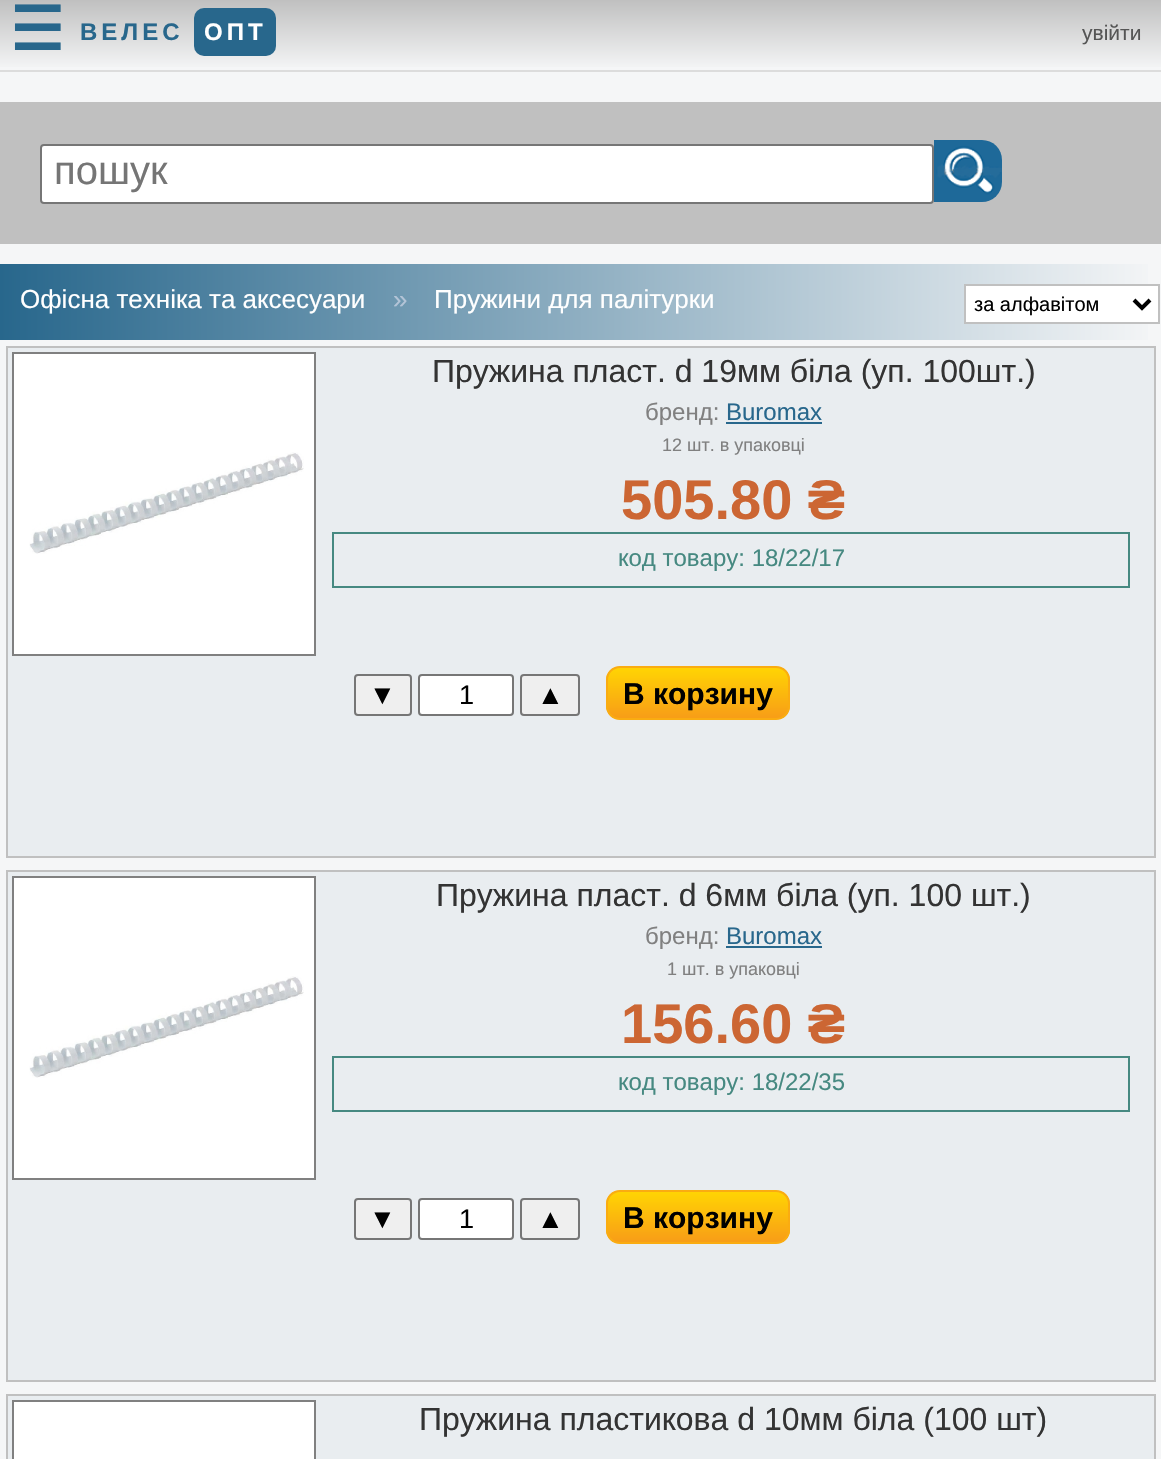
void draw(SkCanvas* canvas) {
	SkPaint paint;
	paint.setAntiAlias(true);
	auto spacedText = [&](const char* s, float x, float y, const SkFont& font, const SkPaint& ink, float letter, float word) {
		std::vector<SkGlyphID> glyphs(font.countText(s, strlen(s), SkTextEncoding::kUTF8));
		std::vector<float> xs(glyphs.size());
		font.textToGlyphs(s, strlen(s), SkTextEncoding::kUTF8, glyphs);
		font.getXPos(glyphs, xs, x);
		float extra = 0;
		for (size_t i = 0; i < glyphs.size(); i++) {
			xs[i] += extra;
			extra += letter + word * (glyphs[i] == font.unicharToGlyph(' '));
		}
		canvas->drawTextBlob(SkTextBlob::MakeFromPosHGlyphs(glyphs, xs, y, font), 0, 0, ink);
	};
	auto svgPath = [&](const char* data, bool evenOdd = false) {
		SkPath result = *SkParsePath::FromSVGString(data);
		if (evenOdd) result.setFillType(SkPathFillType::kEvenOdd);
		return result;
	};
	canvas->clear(0xfff5f6f7);
	{
		const SkColor colors[] = {0xfff5f6f7, 0xffc0c0c0};
		const float stops[] = {0, 1};
		const SkPoint ends[] = {{581, 70}, {581, 0}};
		paint.setShader(SkGradientShader::MakeLinear(ends, colors, stops, 2, SkTileMode::kClamp));
		paint.setAlpha(255);
	}
	canvas->drawRect(SkRect::MakeXYWH(0, 0, 1161, 67), paint);
	paint.setShader(nullptr);
	paint.setColor(0xffdcdcdc);
	canvas->drawRect(SkRect::MakeXYWH(0, 70, 1161, 2), paint);
	SkFont f1(fontMgr->matchFamilyStyle("DejaVu Sans", SkFontStyle::Bold()), 60);
	f1.setSubpixel(true);
	paint.setColor(0xff28678c);
	spacedText("☰", 10, 50, f1, paint, 4, 0);
	SkFont f2(fontMgr->matchFamilyStyle("Liberation Sans", SkFontStyle::Bold()), 24);
	f2.setSubpixel(true);
	spacedText("ВЕЛЕС", 80, 40, f2, paint, 4, 0);
	canvas->drawRoundRect(SkRect::MakeXYWH(194, 8, 82, 48), 10, 10, paint);
	paint.setColor(0xffffffff);
	spacedText("ОПТ", 204, 40, f2, paint, 4, 0);
	SkFont f3(fontMgr->matchFamilyStyle("Liberation Sans", SkFontStyle::Normal()), 21);
	f3.setSubpixel(true);
	paint.setColor(0xff555555);
	canvas->drawString("увійти", 1082, 40, f3, paint);
	paint.setColor(0xffc0c0c0);
	canvas->drawRect(SkRect::MakeXYWH(0, 102, 1161, 142), paint);
	paint.setColor(0xffffffff);
	canvas->drawRoundRect(SkRect::MakeXYWH(41, 145, 892, 58), 3, 3, paint);
	paint.setStroke(true);
	paint.setStrokeWidth(2);
	paint.setColor(0xff767676);
	canvas->drawRoundRect(SkRect::MakeXYWH(41, 145, 892, 58), 3, 3, paint);
	SkFont f4(fontMgr->matchFamilyStyle("Liberation Sans", SkFontStyle::Normal()), 40);
	f4.setSubpixel(true);
	paint.setStroke(false);
	paint.setColor(0xff757575);
	canvas->drawString("пошук", 54, 184, f4, paint);
	canvas->drawImageRect(SkImages::DeferredFromEncodedData(SkData::MakeFromFileName("img1.png")), SkRect::MakeXYWH(934, 140, 68, 62), SkSamplingOptions());
	{
		const SkColor colors[] = {0xfff5f6f7, 0xff28678c};
		const float stops[] = {0, 1};
		const SkPoint ends[] = {{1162, 302}, {0, 302}};
		paint.setShader(SkGradientShader::MakeLinear(ends, colors, stops, 2, SkTileMode::kClamp));
		paint.setAlpha(255);
	}
	canvas->drawRect(SkRect::MakeXYWH(0, 264, 1148, 76), paint);
	SkFont f5(fontMgr->matchFamilyStyle("Liberation Sans", SkFontStyle::Normal()), 26);
	f5.setSubpixel(true);
	paint.setShader(nullptr);
	paint.setColor(0xffffffff);
	canvas->drawString("Офісна техніка та аксесуари", 20, 308, f5, paint);
	paint.setColor(0xffb3c4d7);
	canvas->drawString("»", 393, 308, f5, paint);
	paint.setColor(0xffffffff);
	canvas->drawString("Пружини для палітурки", 434, 308, f5, paint);
	canvas->drawRect(SkRect::MakeXYWH(965, 285, 194, 38), paint);
	paint.setStroke(true);
	paint.setColor(0xffc0c0c0);
	canvas->drawRect(SkRect::MakeXYWH(965, 285, 194, 38), paint);
	paint.setStrokeWidth(4);
	paint.setColor(0xff000000);
	canvas->drawPath(svgPath("M1134 300L1142 308L1150 300"), paint);
	SkFont f6(fontMgr->matchFamilyStyle("Liberation Sans", SkFontStyle::Normal()), 20);
	f6.setSubpixel(true);
	paint.setStroke(false);
	canvas->drawString("за алфавітом", 974, 311, f6, paint);
	paint.setColor(0xffe9edf0);
	canvas->drawRect(SkRect::MakeXYWH(7, 347, 1148, 510), paint);
	paint.setStroke(true);
	paint.setStrokeWidth(2);
	paint.setColor(0xffc0c0c0);
	canvas->drawRect(SkRect::MakeXYWH(7, 347, 1148, 510), paint);
	paint.setStroke(false);
	paint.setColor(0xffffffff);
	canvas->drawRect(SkRect::MakeXYWH(13, 353, 302, 302), paint);
	paint.setStroke(true);
	paint.setColor(0xff808080);
	canvas->drawRect(SkRect::MakeXYWH(13, 353, 302, 302), paint);
	canvas->drawImageRect(SkImages::DeferredFromEncodedData(SkData::MakeFromFileName("img2.png")), SkRect::MakeXYWH(29, 452, 275, 102), SkSamplingOptions());
	SkFont f7(fontMgr->matchFamilyStyle("Liberation Sans", SkFontStyle::Normal()), 32);
	f7.setSubpixel(true);
	paint.setStroke(false);
	paint.setColor(0xff333333);
	canvas->drawString("Пружина пласт. d 19мм біла (уп. 100шт.)", 432, 382, f7, paint);
	SkFont f8(fontMgr->matchFamilyStyle("Liberation Sans", SkFontStyle::Normal()), 24);
	f8.setSubpixel(true);
	paint.setColor(0xff808080);
	canvas->drawString("бренд:", 645, 420, f8, paint);
	paint.setColor(0xff28678c);
	canvas->drawString("Buromax", 726, 420, f8, paint);
	canvas->drawRect(SkRect::MakeXYWH(726, 422, 96, 2), paint);
	SkFont f9(fontMgr->matchFamilyStyle("Liberation Sans", SkFontStyle::Normal()), 18);
	f9.setSubpixel(true);
	paint.setColor(0xff808080);
	canvas->drawString("12 шт. в упаковці", 662, 451, f9, paint);
	SkFont f10(fontMgr->matchFamilyStyle("Liberation Sans", SkFontStyle::Bold()), 56);
	f10.setSubpixel(true);
	paint.setColor(0xffcc6633);
	canvas->drawString("505.80 ₴", 621, 519, f10, paint);
	paint.setStroke(true);
	paint.setColor(0xff468981);
	canvas->drawRect(SkRect::MakeXYWH(333, 533, 796, 54), paint);
	paint.setStroke(false);
	canvas->drawString("код товару: 18/22/17", 618, 566, f8, paint);
	paint.setColor(0xffefefef);
	canvas->drawRoundRect(SkRect::MakeXYWH(355, 675, 56, 40), 3, 3, paint);
	paint.setStroke(true);
	paint.setColor(0xff767676);
	canvas->drawRoundRect(SkRect::MakeXYWH(355, 675, 56, 40), 3, 3, paint);
	SkFont f11(fontMgr->matchFamilyStyle("Liberation Sans", SkFontStyle::Normal()), 27);
	f11.setSubpixel(true);
	paint.setStroke(false);
	paint.setColor(0xff000000);
	canvas->drawString("▼", 369, 704, f11, paint);
	paint.setColor(0xffffffff);
	canvas->drawRoundRect(SkRect::MakeXYWH(419, 675, 94, 40), 3, 3, paint);
	paint.setStroke(true);
	paint.setColor(0xff767676);
	canvas->drawRoundRect(SkRect::MakeXYWH(419, 675, 94, 40), 3, 3, paint);
	paint.setStroke(false);
	paint.setColor(0xff000000);
	canvas->drawString("1", 459, 704, f11, paint);
	paint.setColor(0xffefefef);
	canvas->drawRoundRect(SkRect::MakeXYWH(521, 675, 58, 40), 3, 3, paint);
	paint.setStroke(true);
	paint.setColor(0xff767676);
	canvas->drawRoundRect(SkRect::MakeXYWH(521, 675, 58, 40), 3, 3, paint);
	paint.setStroke(false);
	paint.setColor(0xff000000);
	canvas->drawString("▲", 537, 704, f11, paint);
	canvas->save();
	canvas->clipPath(svgPath("M620 666H776C783.5 666 790 672.5 790 680V706C790 713.5 783.5 720 776 720H620C612.5 720 606 713.5 606 706V680C606 672.5 612.5 666 620 666Z"), true);
	{
		const SkColor colors[] = {0xffffd403, 0xfff89d17};
		const float stops[] = {0, 1};
		const SkPoint ends[] = {{698, 668}, {698, 718}};
		paint.setShader(SkGradientShader::MakeLinear(ends, colors, stops, 2, SkTileMode::kClamp));
		paint.setAlpha(255);
	}
	canvas->drawRect(SkRect::MakeXYWH(606, 668, 184, 50), paint);
	canvas->restore();
	paint.setStroke(true);
	paint.setShader(nullptr);
	paint.setColor(0xfffaac11);
	canvas->drawRoundRect(SkRect::MakeXYWH(607, 667, 182, 52), 13, 13, paint);
	SkFont f12(fontMgr->matchFamilyStyle("Liberation Sans", SkFontStyle::Bold()), 30);
	f12.setSubpixel(true);
	paint.setStroke(false);
	paint.setColor(0xff000000);
	canvas->drawString("В корзину", 623, 704, f12, paint);
	paint.setColor(0xffe9edf0);
	canvas->drawRect(SkRect::MakeXYWH(7, 871, 1148, 510), paint);
	paint.setStroke(true);
	paint.setColor(0xffc0c0c0);
	canvas->drawRect(SkRect::MakeXYWH(7, 871, 1148, 510), paint);
	paint.setStroke(false);
	paint.setColor(0xffffffff);
	canvas->drawRect(SkRect::MakeXYWH(13, 877, 302, 302), paint);
	paint.setStroke(true);
	paint.setColor(0xff808080);
	canvas->drawRect(SkRect::MakeXYWH(13, 877, 302, 302), paint);
	canvas->drawImageRect(SkImages::DeferredFromEncodedData(SkData::MakeFromFileName("img2.png")), SkRect::MakeXYWH(29, 976, 275, 102), SkSamplingOptions());
	paint.setStroke(false);
	paint.setColor(0xff333333);
	canvas->drawString("Пружина пласт. d 6мм біла (уп. 100 шт.)", 436, 906, f7, paint);
	paint.setColor(0xff808080);
	canvas->drawString("бренд:", 645, 944, f8, paint);
	paint.setColor(0xff28678c);
	canvas->drawString("Buromax", 726, 944, f8, paint);
	canvas->drawRect(SkRect::MakeXYWH(726, 946, 96, 2), paint);
	paint.setColor(0xff808080);
	canvas->drawString("1 шт. в упаковці", 667, 975, f9, paint);
	paint.setColor(0xffcc6633);
	canvas->drawString("156.60 ₴", 621, 1043, f10, paint);
	paint.setStroke(true);
	paint.setColor(0xff468981);
	canvas->drawRect(SkRect::MakeXYWH(333, 1057, 796, 54), paint);
	paint.setStroke(false);
	canvas->drawString("код товару: 18/22/35", 618, 1090, f8, paint);
	paint.setColor(0xffefefef);
	canvas->drawRoundRect(SkRect::MakeXYWH(355, 1199, 56, 40), 3, 3, paint);
	paint.setStroke(true);
	paint.setColor(0xff767676);
	canvas->drawRoundRect(SkRect::MakeXYWH(355, 1199, 56, 40), 3, 3, paint);
	paint.setStroke(false);
	paint.setColor(0xff000000);
	canvas->drawString("▼", 369, 1228, f11, paint);
	paint.setColor(0xffffffff);
	canvas->drawRoundRect(SkRect::MakeXYWH(419, 1199, 94, 40), 3, 3, paint);
	paint.setStroke(true);
	paint.setColor(0xff767676);
	canvas->drawRoundRect(SkRect::MakeXYWH(419, 1199, 94, 40), 3, 3, paint);
	paint.setStroke(false);
	paint.setColor(0xff000000);
	canvas->drawString("1", 459, 1228, f11, paint);
	paint.setColor(0xffefefef);
	canvas->drawRoundRect(SkRect::MakeXYWH(521, 1199, 58, 40), 3, 3, paint);
	paint.setStroke(true);
	paint.setColor(0xff767676);
	canvas->drawRoundRect(SkRect::MakeXYWH(521, 1199, 58, 40), 3, 3, paint);
	paint.setStroke(false);
	paint.setColor(0xff000000);
	canvas->drawString("▲", 537, 1228, f11, paint);
	canvas->save();
	canvas->clipPath(svgPath("M620 1190H776C783.5 1190 790 1196.5 790 1204V1230C790 1237.5 783.5 1244 776 1244H620C612.5 1244 606 1237.5 606 1230V1204C606 1196.5 612.5 1190 620 1190Z"), true);
	{
		const SkColor colors[] = {0xffffd403, 0xfff89d17};
		const float stops[] = {0, 1};
		const SkPoint ends[] = {{698, 1192}, {698, 1242}};
		paint.setShader(SkGradientShader::MakeLinear(ends, colors, stops, 2, SkTileMode::kClamp));
		paint.setAlpha(255);
	}
	canvas->drawRect(SkRect::MakeXYWH(606, 1192, 184, 50), paint);
	canvas->restore();
	paint.setStroke(true);
	paint.setShader(nullptr);
	paint.setColor(0xfffaac11);
	canvas->drawRoundRect(SkRect::MakeXYWH(607, 1191, 182, 52), 13, 13, paint);
	paint.setStroke(false);
	paint.setColor(0xff000000);
	canvas->drawString("В корзину", 623, 1228, f12, paint);
	paint.setColor(0xffe9edf0);
	canvas->drawRect(SkRect::MakeXYWH(7, 1395, 1148, 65), paint);
	paint.setStroke(true);
	paint.setColor(0xffc0c0c0);
	canvas->drawRect(SkRect::MakeXYWH(7, 1395, 1148, 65), paint);
	paint.setStroke(false);
	paint.setColor(0xffffffff);
	canvas->drawRect(SkRect::MakeXYWH(13, 1401, 302, 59), paint);
	paint.setStroke(true);
	paint.setColor(0xff808080);
	canvas->drawRect(SkRect::MakeXYWH(13, 1401, 302, 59), paint);
	paint.setStroke(false);
	paint.setColor(0xff333333);
	canvas->drawString("Пружина пластикова d 10мм біла (100 шт)", 419, 1430, f7, paint);
}
